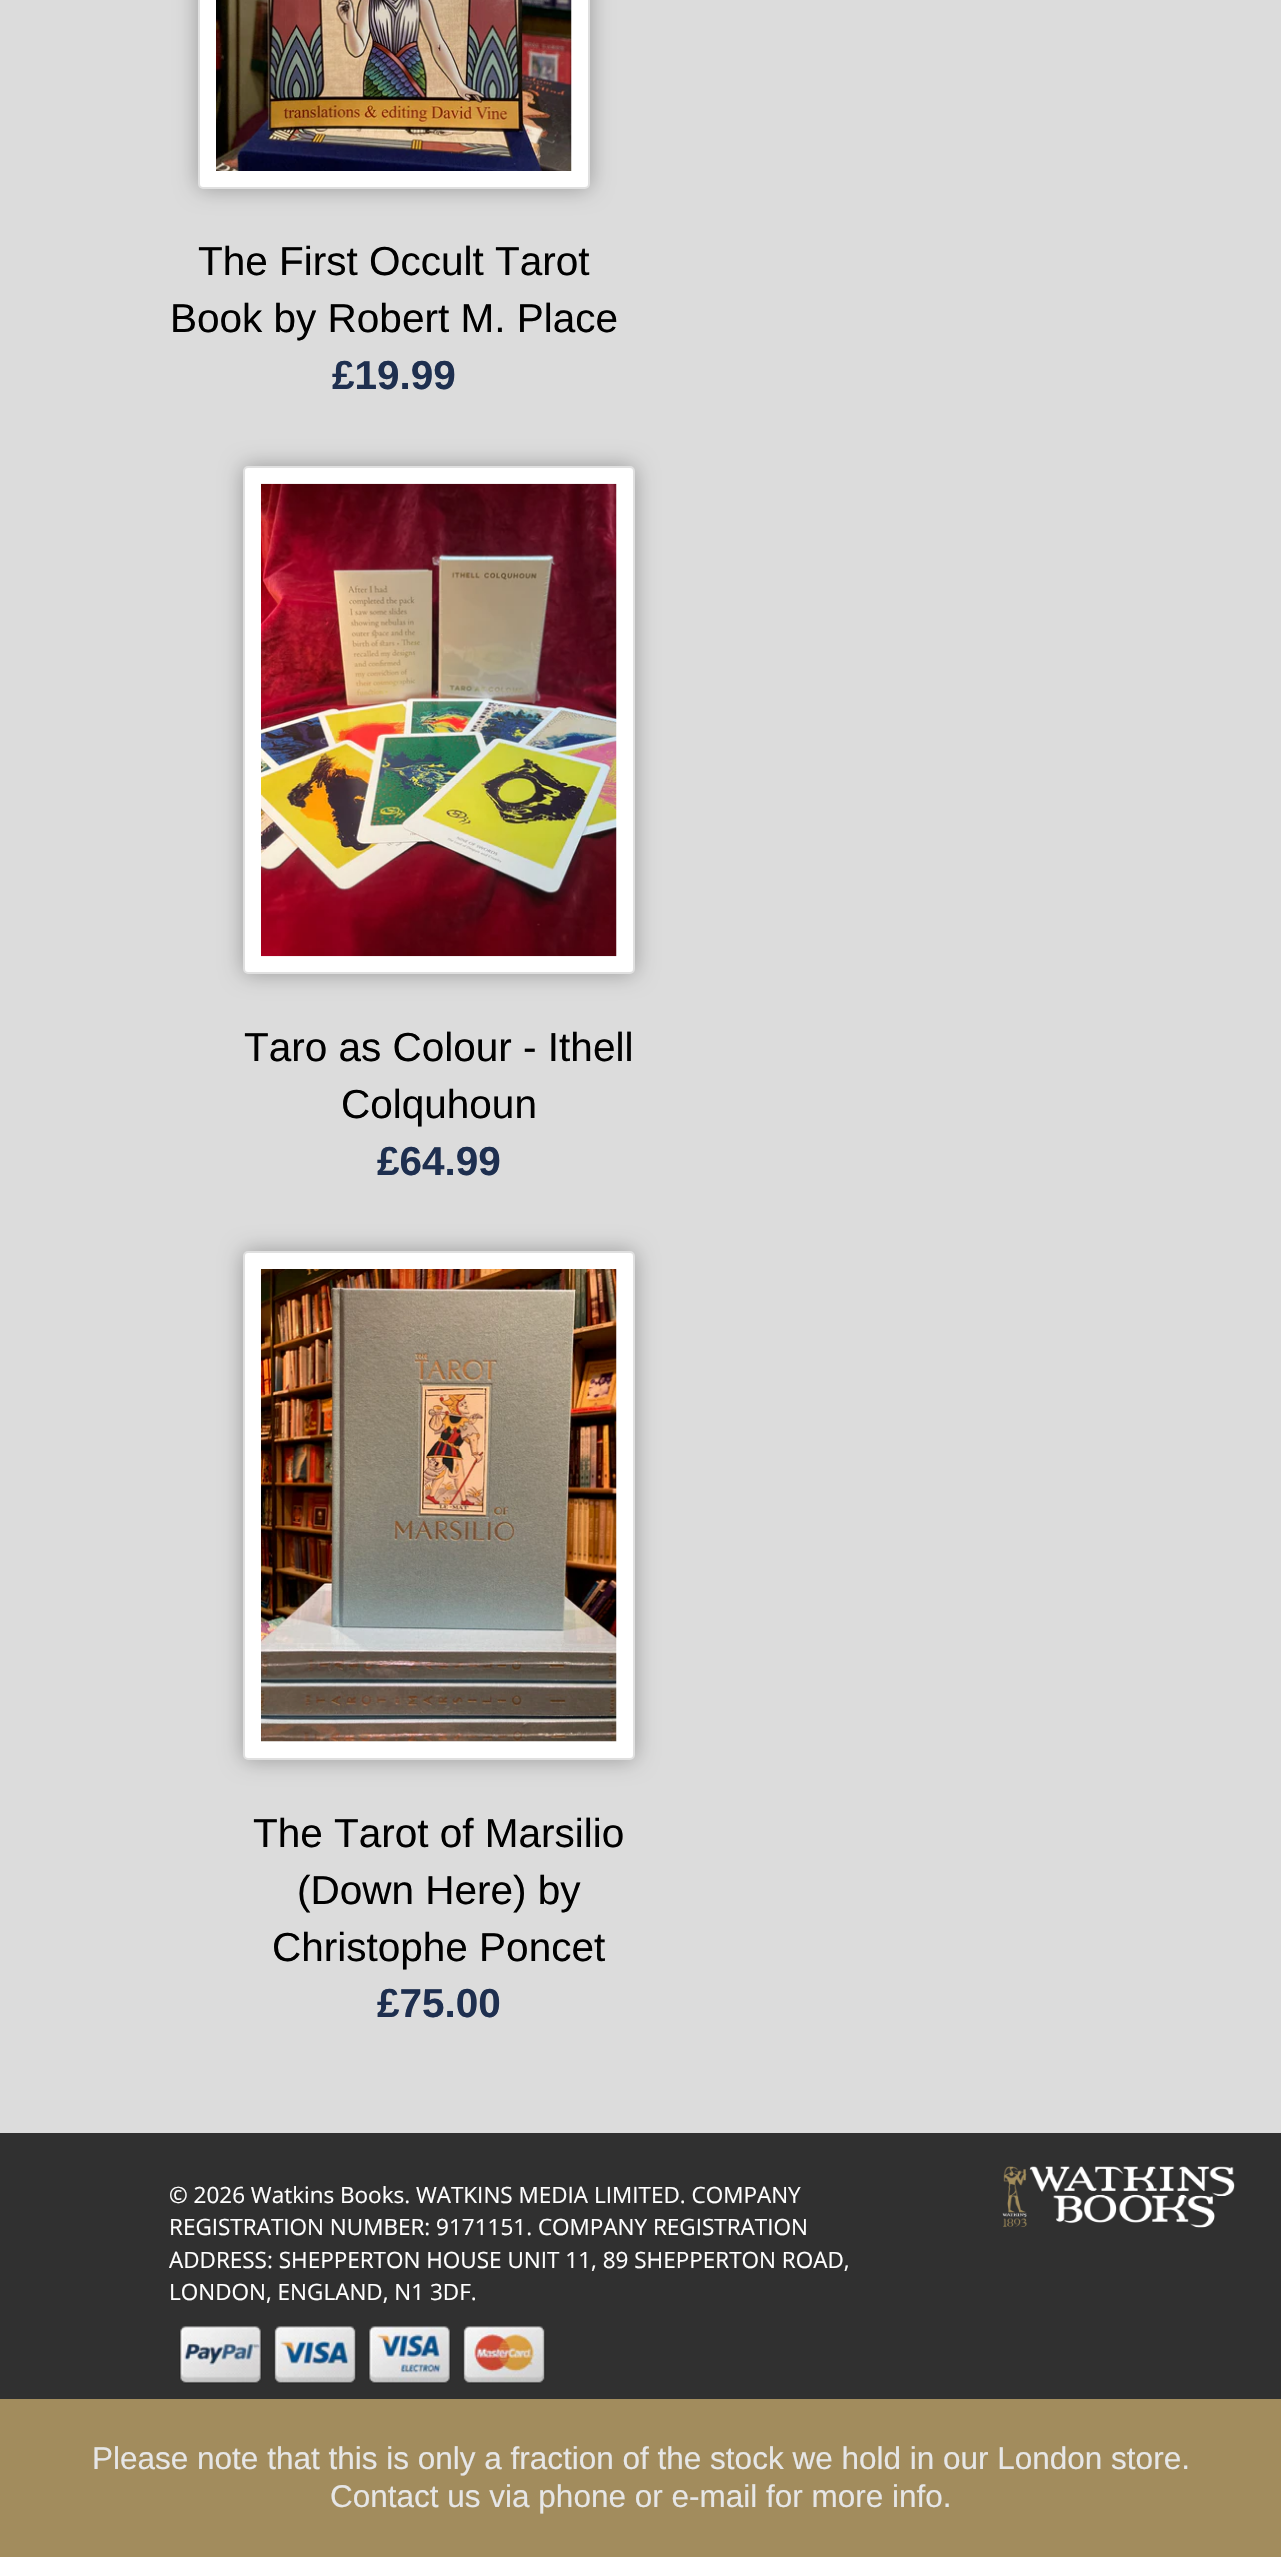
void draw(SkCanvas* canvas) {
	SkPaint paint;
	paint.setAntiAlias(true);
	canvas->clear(0xffdcdcdc);
	paint.setColor(0x4d000100);
	paint.setMaskFilter(SkMaskFilter::MakeBlur(kNormal_SkBlurStyle, 11));
	canvas->drawRoundRect(SkRect::MakeXYWH(198, -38, 392, 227), 5, 5, paint);
	paint.setMaskFilter(nullptr);
	paint.setColor(0xffffffff);
	canvas->drawRoundRect(SkRect::MakeXYWH(199, -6, 390, 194), 4, 4, paint);
	paint.setStroke(true);
	paint.setStrokeWidth(2);
	paint.setColor(0xffe0e0e0);
	canvas->drawRoundRect(SkRect::MakeXYWH(199, -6, 390, 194), 4, 4, paint);
	canvas->drawImageRect(SkImages::DeferredFromEncodedData(SkData::MakeFromFileName("img1.png")), SkRect::MakeXYWH(216, 0, 356, 171), SkSamplingOptions());
	SkFont f1(fontMgr->matchFamilyStyle("Liberation Sans", SkFontStyle::Normal()), 40.5);
	f1.setSubpixel(true);
	paint.setStroke(false);
	paint.setColor(0xff000000);
	canvas->drawString("The First Occult Tarot", 198, 275, f1, paint);
	canvas->drawString("Book by Robert M. Place", 170, 332, f1, paint);
	SkFont f2(fontMgr->matchFamilyStyle("Liberation Sans", SkFontStyle::Bold()), 40.5);
	f2.setSubpixel(true);
	paint.setColor(0xff1e2f4f);
	canvas->drawString("£19.99", 332, 389, f2, paint);
	paint.setColor(0x4d000100);
	paint.setMaskFilter(SkMaskFilter::MakeBlur(kNormal_SkBlurStyle, 11));
	canvas->drawRoundRect(SkRect::MakeXYWH(243, 466, 392, 508), 5, 5, paint);
	paint.setMaskFilter(nullptr);
	paint.setColor(0xffffffff);
	canvas->drawRoundRect(SkRect::MakeXYWH(244, 467, 390, 506), 4, 4, paint);
	paint.setStroke(true);
	paint.setColor(0xffe0e0e0);
	canvas->drawRoundRect(SkRect::MakeXYWH(244, 467, 390, 506), 4, 4, paint);
	canvas->drawImageRect(SkImages::DeferredFromEncodedData(SkData::MakeFromFileName("img2.png")), SkRect::MakeXYWH(261, 483, 356, 474), SkSamplingOptions());
	paint.setStroke(false);
	paint.setColor(0xff000000);
	canvas->drawString("Taro as Colour - Ithell", 244, 1061, f1, paint);
	canvas->drawString("Colquhoun", 341, 1118, f1, paint);
	paint.setColor(0xff1e2f4f);
	canvas->drawString("£64.99", 377, 1175, f2, paint);
	paint.setColor(0x4d000100);
	paint.setMaskFilter(SkMaskFilter::MakeBlur(kNormal_SkBlurStyle, 11));
	canvas->drawRoundRect(SkRect::MakeXYWH(243, 1251, 392, 509), 5, 5, paint);
	paint.setMaskFilter(nullptr);
	paint.setColor(0xffffffff);
	canvas->drawRoundRect(SkRect::MakeXYWH(244, 1252, 390, 507), 4, 4, paint);
	paint.setStroke(true);
	paint.setColor(0xffe0e0e0);
	canvas->drawRoundRect(SkRect::MakeXYWH(244, 1252, 390, 507), 4, 4, paint);
	canvas->drawImageRect(SkImages::DeferredFromEncodedData(SkData::MakeFromFileName("img3.png")), SkRect::MakeXYWH(261, 1269, 356, 473), SkSamplingOptions());
	paint.setStroke(false);
	paint.setColor(0xff000000);
	canvas->drawString("The Tarot of Marsilio", 253, 1847, f1, paint);
	canvas->drawString("(Down Here) by", 297, 1904, f1, paint);
	canvas->drawString("Christophe Poncet", 272, 1961, f1, paint);
	paint.setColor(0xff1e2f4f);
	canvas->drawString("£75.00", 377, 2017, f2, paint);
	paint.setColor(0xff303030);
	canvas->drawRect(SkRect::MakeXYWH(0, 2133, 1281, 266), paint);
	SkFont f3(fontMgr->matchFamilyStyle("Open Sans", SkFontStyle::Normal()), 22.5);
	f3.setSubpixel(true);
	paint.setColor(0xffffffff);
	canvas->drawString("© 2026 Watkins Books. WATKINS MEDIA LIMITED. COMPANY", 169, 2203, f3, paint);
	canvas->drawString("REGISTRATION NUMBER: 9171151. COMPANY REGISTRATION", 169, 2235, f3, paint);
	canvas->drawString("ADDRESS: SHEPPERTON HOUSE UNIT 11, 89 SHEPPERTON ROAD,", 169, 2268, f3, paint);
	canvas->drawString("LONDON, ENGLAND, N1 3DF.", 169, 2300, f3, paint);
	canvas->drawImageRect(SkImages::DeferredFromEncodedData(SkData::MakeFromFileName("img4.png")), SkRect::MakeXYWH(1002, 2166, 233, 62), SkSamplingOptions());
	canvas->drawImageRect(SkImages::DeferredFromEncodedData(SkData::MakeFromFileName("img5.png")), SkRect::MakeXYWH(179, 2326, 83, 58), SkSamplingOptions());
	canvas->drawImageRect(SkImages::DeferredFromEncodedData(SkData::MakeFromFileName("img6.png")), SkRect::MakeXYWH(273, 2326, 84, 58), SkSamplingOptions());
	canvas->drawImageRect(SkImages::DeferredFromEncodedData(SkData::MakeFromFileName("img7.png")), SkRect::MakeXYWH(368, 2326, 83, 58), SkSamplingOptions());
	canvas->drawImageRect(SkImages::DeferredFromEncodedData(SkData::MakeFromFileName("img8.png")), SkRect::MakeXYWH(462, 2326, 84, 58), SkSamplingOptions());
	paint.setColor(0xffa28c5d);
	canvas->drawRect(SkRect::MakeXYWH(0, 2399, 1281, 158), paint);
	SkFont f4(fontMgr->matchFamilyStyle("Liberation Sans", SkFontStyle::Normal()), 31.5);
	f4.setSubpixel(true);
	paint.setColor(0xffe6e6e6);
	canvas->drawString("Please note that this is only a fraction of the stock we hold in our London store.", 92, 2469, f4, paint);
	canvas->drawString("Contact us via phone or e-mail for more info.", 330, 2507, f4, paint);
}
